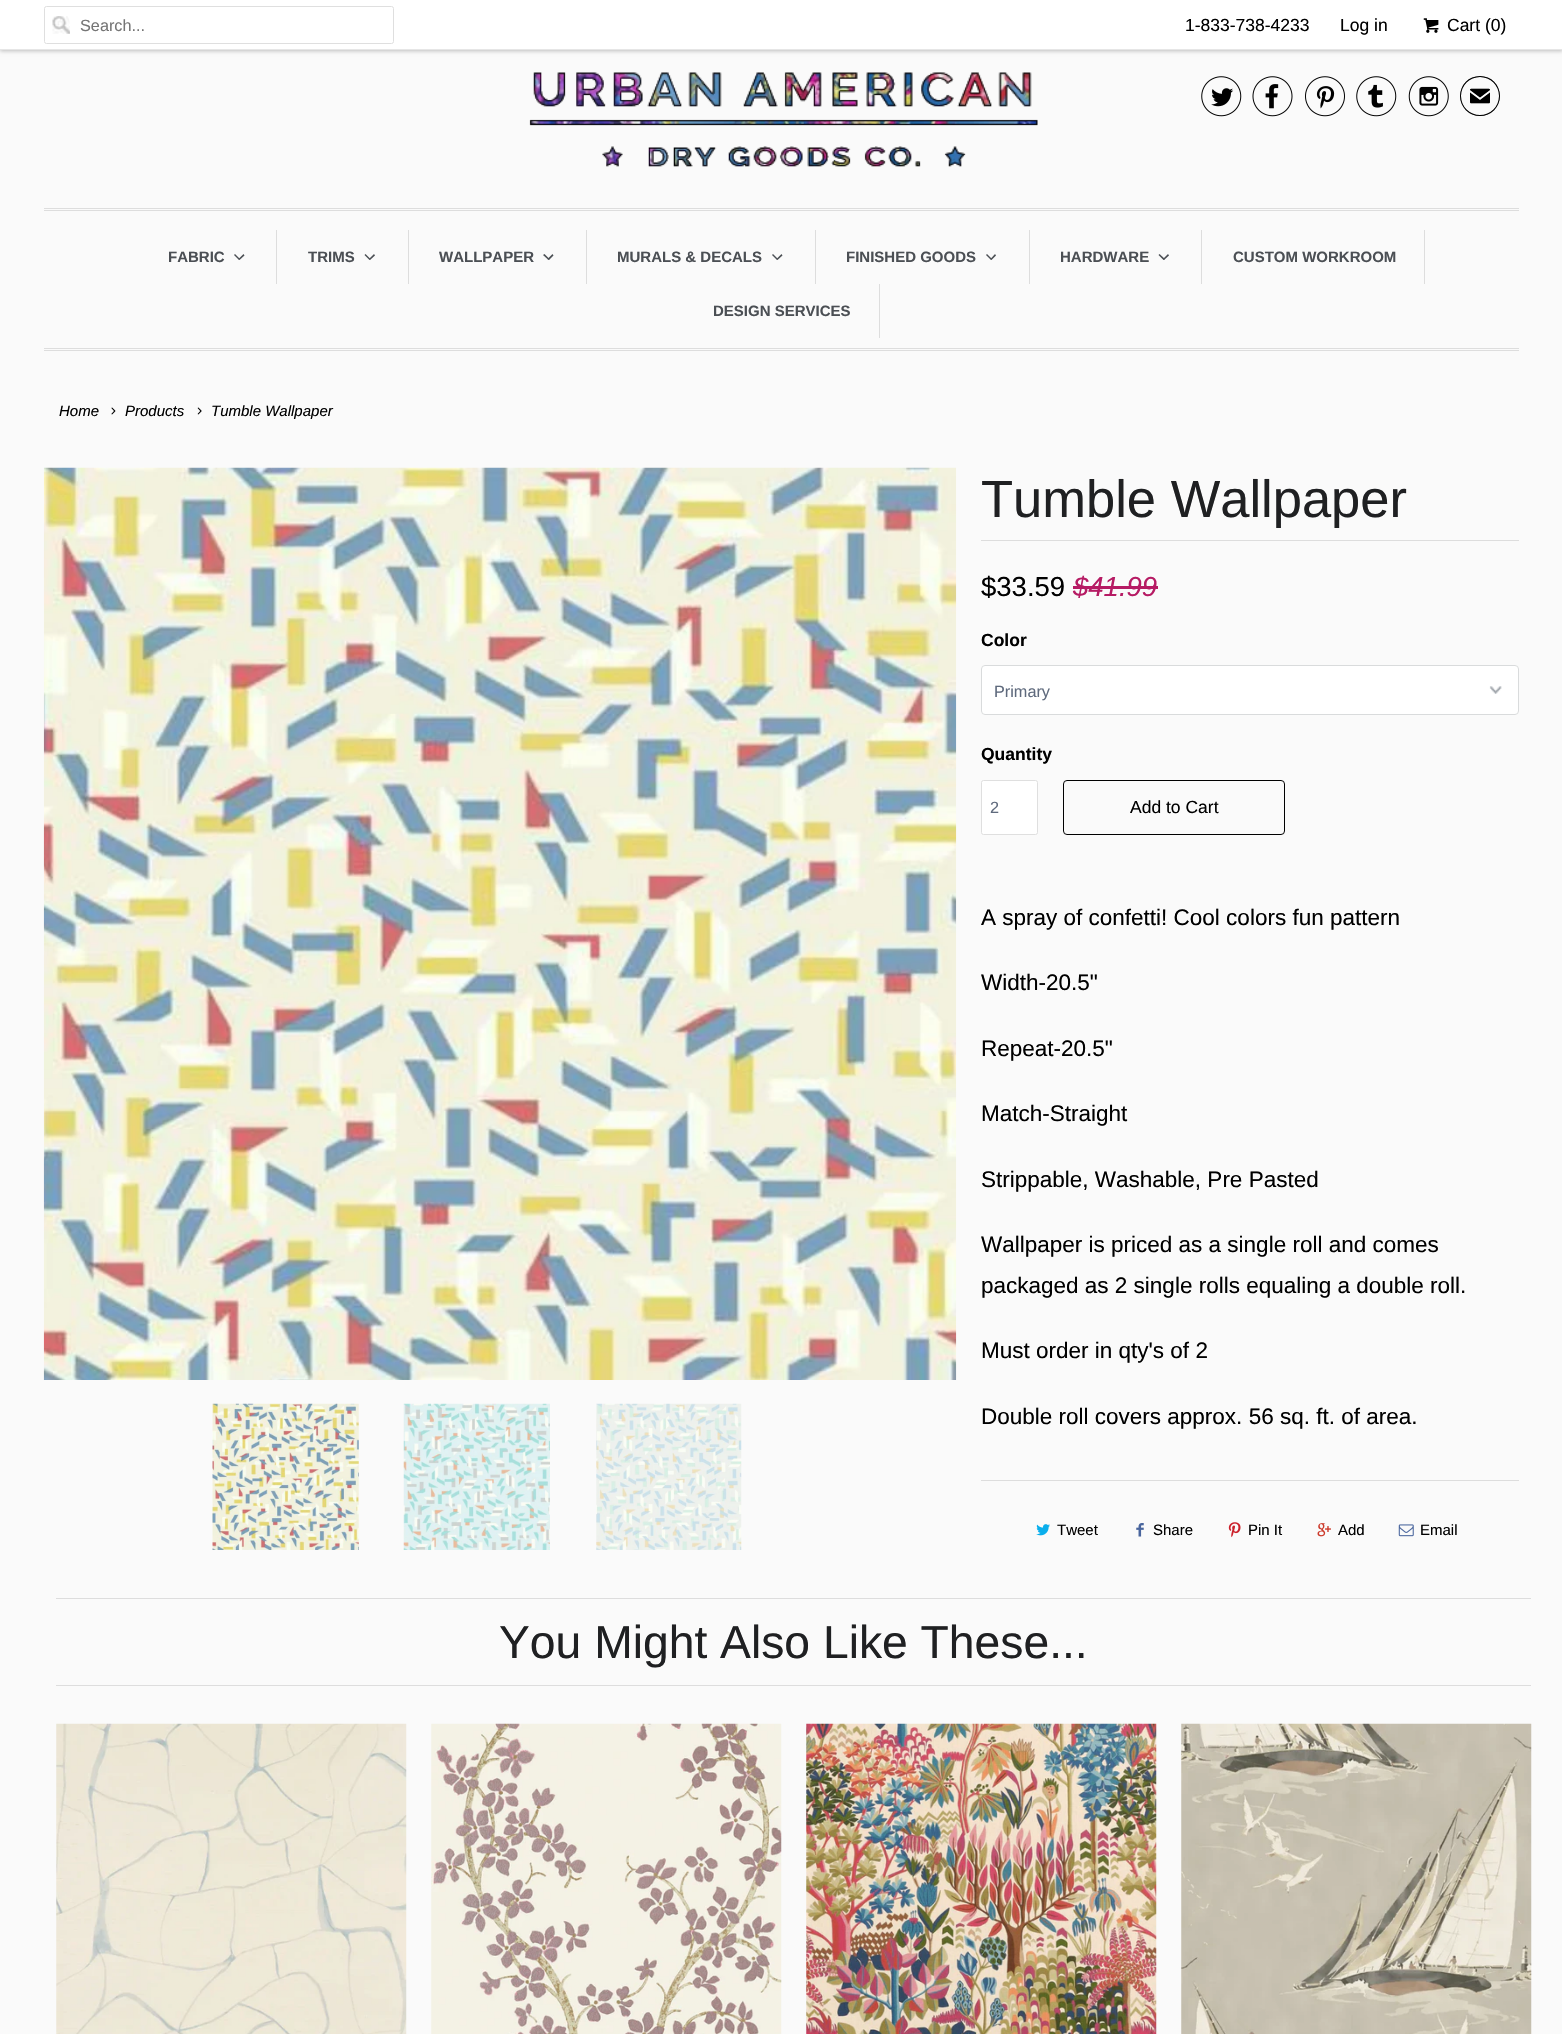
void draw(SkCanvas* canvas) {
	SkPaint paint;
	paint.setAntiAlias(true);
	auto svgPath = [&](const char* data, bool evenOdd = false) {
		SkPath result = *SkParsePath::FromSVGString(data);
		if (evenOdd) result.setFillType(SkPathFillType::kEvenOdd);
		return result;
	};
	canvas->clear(0xfffafafa);
	paint.setColor(0x40000000);
	paint.setMaskFilter(SkMaskFilter::MakeBlur(kNormal_SkBlurStyle, 2));
	canvas->drawRect(SkRect::MakeXYWH(0, 1, 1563, 50), paint);
	paint.setMaskFilter(nullptr);
	paint.setColor(0xffffffff);
	canvas->drawRect(SkRect::MakeXYWH(0, 0, 1562, 49), paint);
	paint.setColor(0xffe6e6e6);
	canvas->drawRect(SkRect::MakeXYWH(0, 49, 1562, 1), paint);
	canvas->drawImageRect(SkImages::DeferredFromEncodedData(SkData::MakeFromFileName("img1.png")), SkRect::MakeXYWH(52, 16, 18, 18), SkSamplingOptions());
	paint.setStroke(true);
	paint.setStrokeWidth(1);
	paint.setColor(0xffdfdfdf);
	canvas->drawRoundRect(SkRect::MakeXYWH(44.5, 6.5, 349, 37), 2, 2, paint);
	SkFont f1(fontMgr->matchFamilyStyle("Liberation Sans", SkFontStyle::Normal()), 16.25);
	f1.setSubpixel(true);
	paint.setStroke(false);
	paint.setColor(0xff757575);
	canvas->drawString("Search...", 80, 31, f1, paint);
	SkFont f2(fontMgr->matchFamilyStyle("Liberation Sans", SkFontStyle::Normal()), 17.5);
	f2.setSubpixel(true);
	paint.setColor(0xff000000);
	canvas->drawString("1-833-738-4233", 1185, 31, f2, paint);
	canvas->drawString("Log in", 1340, 31, f2, paint);
	canvas->drawImageRect(SkImages::DeferredFromEncodedData(SkData::MakeFromFileName("img2.png")), SkRect::MakeXYWH(1423, 18, 16, 15), SkSamplingOptions());
	canvas->drawString("Cart (0)", 1447, 31, f2, paint);
	canvas->drawImageRect(SkImages::DeferredFromEncodedData(SkData::MakeFromFileName("img3.png")), SkRect::MakeXYWH(529, 72, 509, 95), SkSamplingOptions());
	canvas->drawImageRect(SkImages::DeferredFromEncodedData(SkData::MakeFromFileName("img4.png")), SkRect::MakeXYWH(1201, 76, 41, 41), SkSamplingOptions());
	canvas->drawImageRect(SkImages::DeferredFromEncodedData(SkData::MakeFromFileName("img5.png")), SkRect::MakeXYWH(1252, 76, 41, 41), SkSamplingOptions());
	canvas->drawImageRect(SkImages::DeferredFromEncodedData(SkData::MakeFromFileName("img6.png")), SkRect::MakeXYWH(1305, 76, 40, 41), SkSamplingOptions());
	canvas->drawImageRect(SkImages::DeferredFromEncodedData(SkData::MakeFromFileName("img7.png")), SkRect::MakeXYWH(1356, 76, 41, 41), SkSamplingOptions());
	canvas->drawImageRect(SkImages::DeferredFromEncodedData(SkData::MakeFromFileName("img8.png")), SkRect::MakeXYWH(1408, 76, 41, 41), SkSamplingOptions());
	SkFont f3(fontMgr->matchFamilyStyle("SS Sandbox", SkFontStyle::Normal()), 40);
	f3.setSubpixel(true);
	canvas->drawString("✉", 1460, 116, f3, paint);
	paint.setColor(0xffdddddd);
	canvas->drawRect(SkRect::MakeXYWH(44, 208, 1475, 1), paint);
	canvas->drawRect(SkRect::MakeXYWH(44, 210, 1475, 1), paint);
	canvas->drawRect(SkRect::MakeXYWH(44, 348, 1475, 1), paint);
	canvas->drawRect(SkRect::MakeXYWH(44, 350, 1475, 1), paint);
	canvas->drawRect(SkRect::MakeXYWH(276, 230, 1, 54), paint);
	SkFont f4(fontMgr->matchFamilyStyle("Liberation Sans", SkFontStyle::Bold()), 15);
	f4.setSubpixel(true);
	paint.setColor(0xff4b4f54);
	canvas->drawString("FABRIC", 168, 262, f4, paint);
	canvas->drawPath(svgPath("M243.5 254L244.5 255.5L239.5 260L238.5 259Z"), paint);
	canvas->drawPath(svgPath("M235 254L240 259L239 260L234 255Z"), paint);
	paint.setColor(0xffdddddd);
	canvas->drawRect(SkRect::MakeXYWH(408, 230, 1, 54), paint);
	paint.setColor(0xff4b4f54);
	canvas->drawString("TRIMS", 308, 262, f4, paint);
	canvas->drawPath(svgPath("M374 254L375 255.5L370 260L369 259Z"), paint);
	canvas->drawPath(svgPath("M365.5 254L370.5 259L369.5 260L364.5 255Z"), paint);
	paint.setColor(0xffdddddd);
	canvas->drawRect(SkRect::MakeXYWH(586, 230, 1, 54), paint);
	paint.setColor(0xff4b4f54);
	canvas->drawString("WALLPAPER", 439, 262, f4, paint);
	canvas->drawPath(svgPath("M552.5 254L553.5 255.5L549 260L547.5 259Z"), paint);
	canvas->drawPath(svgPath("M544.5 254L549.5 259L548.5 260L543 255Z"), paint);
	paint.setColor(0xffdddddd);
	canvas->drawRect(SkRect::MakeXYWH(815, 230, 1, 54), paint);
	paint.setColor(0xff4b4f54);
	canvas->drawString("MURALS & DECALS", 617, 262, f4, paint);
	canvas->drawPath(svgPath("M781.5 254L782.5 255.5L777.5 260L776.5 259Z"), paint);
	canvas->drawPath(svgPath("M773 254L778 259L777 260L772 255Z"), paint);
	paint.setColor(0xffdddddd);
	canvas->drawRect(SkRect::MakeXYWH(1029, 230, 1, 54), paint);
	paint.setColor(0xff4b4f54);
	canvas->drawString("FINISHED GOODS", 846, 262, f4, paint);
	canvas->drawPath(svgPath("M995 254L996 255.5L991.5 260L990.5 259Z"), paint);
	canvas->drawPath(svgPath("M987 254L992 259L991 260L986 255Z"), paint);
	paint.setColor(0xffdddddd);
	canvas->drawRect(SkRect::MakeXYWH(1201, 230, 1, 54), paint);
	paint.setColor(0xff4b4f54);
	canvas->drawString("HARDWARE", 1060, 262, f4, paint);
	canvas->drawPath(svgPath("M1168 254L1169 255.5L1164 260L1163 259Z"), paint);
	canvas->drawPath(svgPath("M1159.5 254L1165 259L1163.5 260L1158.5 255Z"), paint);
	paint.setColor(0xffdddddd);
	canvas->drawRect(SkRect::MakeXYWH(1424, 230, 1, 54), paint);
	paint.setColor(0xff4b4f54);
	canvas->drawString("CUSTOM WORKROOM", 1233, 262, f4, paint);
	paint.setColor(0xffdddddd);
	canvas->drawRect(SkRect::MakeXYWH(879, 284, 1, 54), paint);
	paint.setColor(0xff4b4f54);
	canvas->drawString("DESIGN SERVICES", 713, 316, f4, paint);
	SkFont f5(fontMgr->matchFamilyStyle("Liberation Sans", SkFontStyle::Italic()), 15);
	f5.setSubpixel(true);
	paint.setColor(0xff000000);
	canvas->drawString("Home", 59, 416, f5, paint);
	canvas->drawImageRect(SkImages::DeferredFromEncodedData(SkData::MakeFromFileName("img9.png")), SkRect::MakeXYWH(111, 407, 5, 8), SkSamplingOptions());
	canvas->drawString("Products", 125, 416, f5, paint);
	canvas->drawImageRect(SkImages::DeferredFromEncodedData(SkData::MakeFromFileName("img10.png")), SkRect::MakeXYWH(197, 407, 5, 8), SkSamplingOptions());
	canvas->drawString("Tumble Wallpaper", 211, 416, f5, paint);
	canvas->drawImageRect(SkImages::DeferredFromEncodedData(SkData::MakeFromFileName("img11.png")), SkRect::MakeXYWH(43, 467, 914, 913), SkSamplingOptions());
	canvas->drawImageRect(SkImages::DeferredFromEncodedData(SkData::MakeFromFileName("img12.png")), SkRect::MakeXYWH(212, 1403, 147, 147), SkSamplingOptions());
	canvas->drawImageRect(SkImages::DeferredFromEncodedData(SkData::MakeFromFileName("img13.png")), SkRect::MakeXYWH(403, 1403, 147, 147), SkSamplingOptions());
	canvas->drawImageRect(SkImages::DeferredFromEncodedData(SkData::MakeFromFileName("img14.png")), SkRect::MakeXYWH(596, 1403, 146, 147), SkSamplingOptions());
	paint.setColor(0xffdddddd);
	canvas->drawRect(SkRect::MakeXYWH(981, 540, 538, 1), paint);
	SkFont f6(fontMgr->matchFamilyStyle("Liberation Sans", SkFontStyle::Normal()), 52.5);
	f6.setSubpixel(true);
	paint.setColor(0xff1f2022);
	canvas->drawString("Tumble Wallpaper", 981, 517, f6, paint);
	SkFont f7(fontMgr->matchFamilyStyle("Liberation Sans", SkFontStyle::Normal()), 27.5);
	f7.setSubpixel(true);
	paint.setColor(0xff000000);
	canvas->drawString("$33.59", 981, 596, f7, paint);
	SkFont f8(fontMgr->matchFamilyStyle("Liberation Sans", SkFontStyle::Italic()), 27.5);
	f8.setSubpixel(true);
	paint.setColor(0xffb61b64);
	canvas->drawString("$41.99", 1073, 596, f8, paint);
	canvas->drawRect(SkRect::MakeXYWH(1073, 586, 85, 3), paint);
	SkFont f9(fontMgr->matchFamilyStyle("Liberation Sans", SkFontStyle::Bold()), 17.5);
	f9.setSubpixel(true);
	paint.setColor(0xff000000);
	canvas->drawString("Color", 981, 646, f9, paint);
	paint.setColor(0xffffffff);
	canvas->drawRoundRect(SkRect::MakeXYWH(981, 665, 538, 50), 4, 4, paint);
	canvas->drawImageRect(SkImages::DeferredFromEncodedData(SkData::MakeFromFileName("img15.png")), SkRect::MakeXYWH(1489, 686, 13, 8), SkSamplingOptions());
	paint.setStroke(true);
	paint.setColor(0xffd9dbdc);
	canvas->drawRoundRect(SkRect::MakeXYWH(981.5, 665.5, 537, 49), 3.5, 3.5, paint);
	paint.setStroke(false);
	paint.setColor(0xff5f6a7d);
	canvas->drawString("Primary", 994, 697, f1, paint);
	paint.setColor(0xff000000);
	canvas->drawString("Quantity", 981, 760, f9, paint);
	paint.setColor(0xffffffff);
	canvas->drawRoundRect(SkRect::MakeXYWH(981.5, 780.5, 56, 54), 2, 2, paint);
	paint.setStroke(true);
	paint.setColor(0xffdfdfdf);
	canvas->drawRoundRect(SkRect::MakeXYWH(981.5, 780.5, 56, 54), 2, 2, paint);
	paint.setStroke(false);
	paint.setColor(0xff5f6a7d);
	canvas->drawString("2", 990, 813, f1, paint);
	paint.setStroke(true);
	paint.setColor(0xff000000);
	canvas->drawRoundRect(SkRect::MakeXYWH(1063.5, 780.5, 221, 54), 3.5, 3.5, paint);
	paint.setStroke(false);
	canvas->drawString("Add to Cart", 1130, 813, f2, paint);
	SkFont f10(fontMgr->matchFamilyStyle("Liberation Sans", SkFontStyle::Normal()), 22.5);
	f10.setSubpixel(true);
	canvas->drawString("A spray of confetti! Cool colors fun pattern", 981, 925, f10, paint);
	canvas->drawString("Width-20.5\"", 981, 990, f10, paint);
	canvas->drawString("Repeat-20.5\"", 981, 1056, f10, paint);
	canvas->drawString("Match-Straight", 981, 1121, f10, paint);
	canvas->drawString("Strippable, Washable, Pre Pasted", 981, 1187, f10, paint);
	canvas->drawString("Wallpaper is priced as a single roll and comes", 981, 1252, f10, paint);
	canvas->drawString("packaged as 2 single rolls equaling a double roll.", 981, 1293, f10, paint);
	canvas->drawString("Must order in qty's of 2", 981, 1358, f10, paint);
	canvas->drawString("Double roll covers approx. 56 sq. ft. of area.", 981, 1424, f10, paint);
	paint.setColor(0xffdddddd);
	canvas->drawRect(SkRect::MakeXYWH(981, 1480, 538, 1), paint);
	canvas->drawImageRect(SkImages::DeferredFromEncodedData(SkData::MakeFromFileName("img16.png")), SkRect::MakeXYWH(1036, 1524, 14, 12), SkSamplingOptions());
	SkFont f11(fontMgr->matchFamilyStyle("Liberation Sans", SkFontStyle::Normal()), 15);
	f11.setSubpixel(true);
	paint.setColor(0xff000000);
	canvas->drawString("Tweet", 1057, 1535, f11, paint);
	canvas->drawImageRect(SkImages::DeferredFromEncodedData(SkData::MakeFromFileName("img17.png")), SkRect::MakeXYWH(1136, 1523, 8, 14), SkSamplingOptions());
	canvas->drawString("Share", 1153, 1535, f11, paint);
	canvas->drawImageRect(SkImages::DeferredFromEncodedData(SkData::MakeFromFileName("img18.png")), SkRect::MakeXYWH(1228, 1522, 13, 16), SkSamplingOptions());
	canvas->drawString("Pin It", 1248, 1535, f11, paint);
	canvas->drawImageRect(SkImages::DeferredFromEncodedData(SkData::MakeFromFileName("img19.png")), SkRect::MakeXYWH(1317, 1523, 14, 14), SkSamplingOptions());
	canvas->drawString("Add", 1338, 1535, f11, paint);
	canvas->drawImageRect(SkImages::DeferredFromEncodedData(SkData::MakeFromFileName("img20.png")), SkRect::MakeXYWH(1398, 1524, 16, 13), SkSamplingOptions());
	canvas->drawString("Email", 1420, 1535, f11, paint);
	paint.setColor(0xffdddddd);
	canvas->drawRect(SkRect::MakeXYWH(56, 1598, 1475, 1), paint);
	canvas->drawRect(SkRect::MakeXYWH(56, 1685, 1475, 1), paint);
	SkFont f12(fontMgr->matchFamilyStyle("Liberation Sans", SkFontStyle::Normal()), 46.25);
	f12.setSubpixel(true);
	paint.setColor(0xff1f2022);
	canvas->drawString("You Might Also Like These...", 499, 1658, f12, paint);
	canvas->drawImageRect(SkImages::DeferredFromEncodedData(SkData::MakeFromFileName("img21.png")), SkRect::MakeXYWH(56, 1723, 351, 311), SkSamplingOptions());
	canvas->drawImageRect(SkImages::DeferredFromEncodedData(SkData::MakeFromFileName("img22.png")), SkRect::MakeXYWH(431, 1723, 351, 311), SkSamplingOptions());
	canvas->drawImageRect(SkImages::DeferredFromEncodedData(SkData::MakeFromFileName("img23.png")), SkRect::MakeXYWH(806, 1723, 351, 311), SkSamplingOptions());
	canvas->drawImageRect(SkImages::DeferredFromEncodedData(SkData::MakeFromFileName("img24.png")), SkRect::MakeXYWH(1181, 1723, 351, 311), SkSamplingOptions());
}
